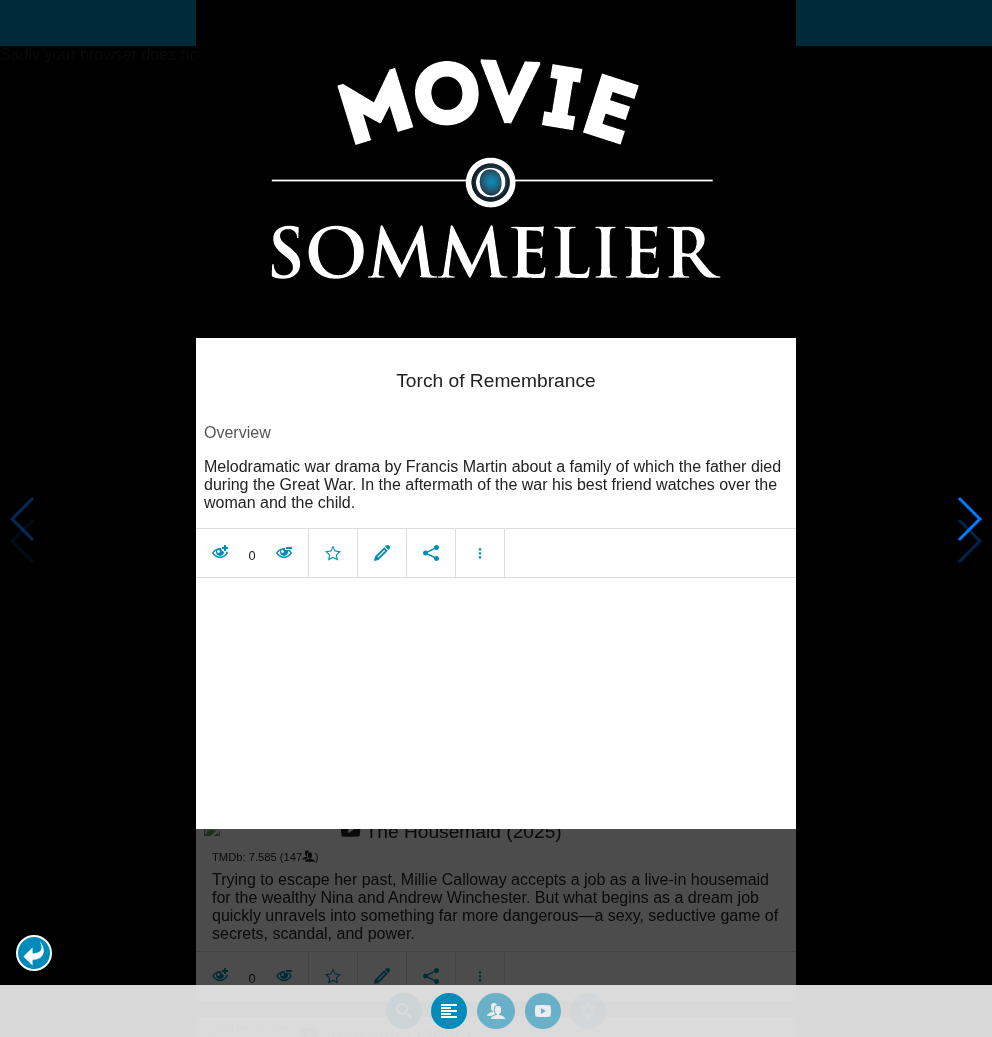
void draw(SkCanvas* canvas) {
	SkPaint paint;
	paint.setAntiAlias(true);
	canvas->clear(0xffffffff);
	canvas->drawImageRect(SkImages::DeferredFromEncodedData(SkData::MakeFromFileName("img1.png")), SkRect::MakeXYWH(0, 0, 992, 1037), SkSamplingOptions());
}
